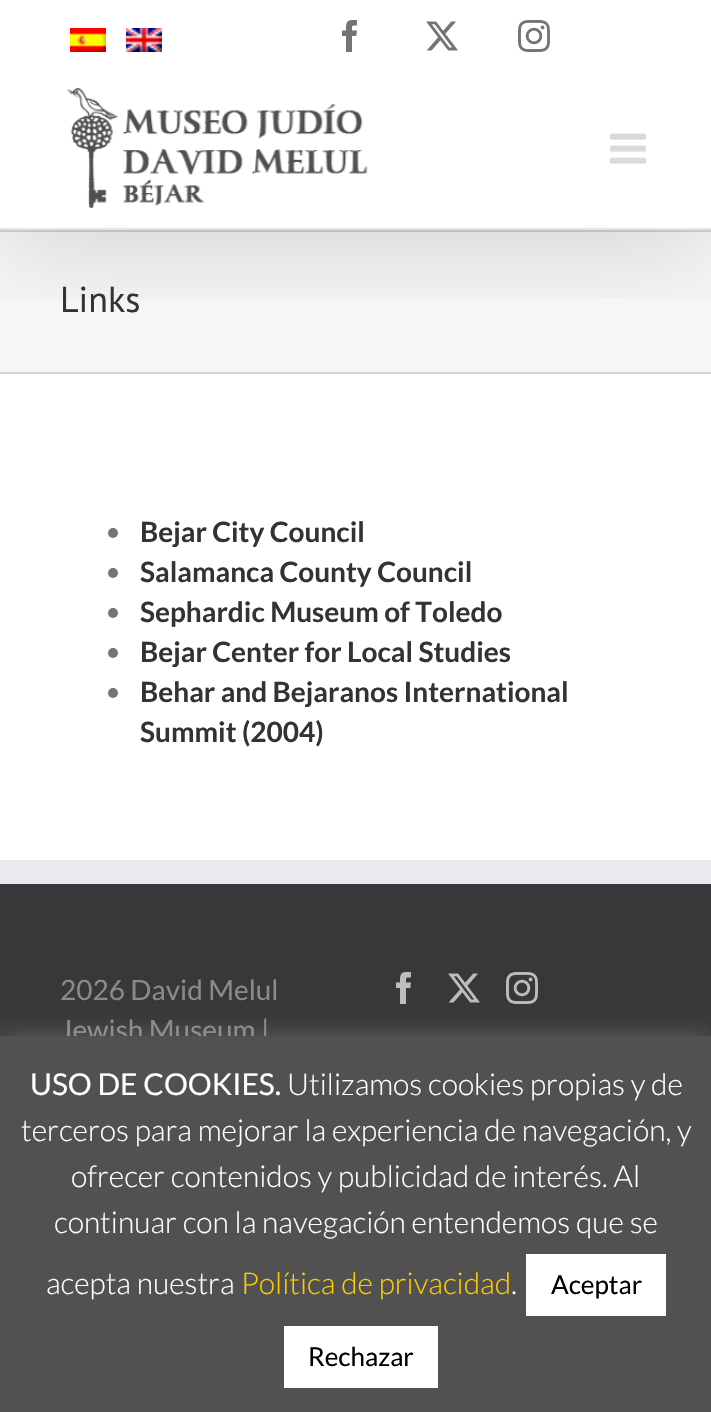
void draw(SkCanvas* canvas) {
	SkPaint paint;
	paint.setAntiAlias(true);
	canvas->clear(0xffffffff);
	paint.setColor(0xfff6f6f6);
	canvas->drawRect(SkRect::MakeXYWH(0, 232, 711, 140), paint);
	paint.setColor(0xffd2d3d4);
	canvas->drawRect(SkRect::MakeXYWH(0, 230, 711, 2), paint);
	canvas->drawRect(SkRect::MakeXYWH(0, 372, 711, 2), paint);
	canvas->save();
	canvas->clipRect(SkRect::MakeXYWH(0, 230, 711, 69));
	paint.setColor(0x24000000);
	paint.setMaskFilter(SkMaskFilter::MakeBlur(kNormal_SkBlurStyle, 50));
	canvas->drawRect(SkRect::MakeXYWH(4, 24, 704, 222), paint);
	paint.setMaskFilter(nullptr);
	canvas->restore();
	canvas->drawImageRect(SkImages::DeferredFromEncodedData(SkData::MakeFromFileName("img1.png")), SkRect::MakeXYWH(70, 28, 36, 24), SkSamplingOptions());
	canvas->drawImageRect(SkImages::DeferredFromEncodedData(SkData::MakeFromFileName("img2.png")), SkRect::MakeXYWH(126, 28, 36, 24), SkSamplingOptions());
	canvas->drawImageRect(SkImages::DeferredFromEncodedData(SkData::MakeFromFileName("img3.png")), SkRect::MakeXYWH(342, 20, 15, 32), SkSamplingOptions());
	canvas->drawImageRect(SkImages::DeferredFromEncodedData(SkData::MakeFromFileName("img4.png")), SkRect::MakeXYWH(426, 21, 32, 30), SkSamplingOptions());
	canvas->drawImageRect(SkImages::DeferredFromEncodedData(SkData::MakeFromFileName("img5.png")), SkRect::MakeXYWH(518, 20, 32, 32), SkSamplingOptions());
	paint.setColor(0xffe5e5e5);
	canvas->drawRect(SkRect::MakeXYWH(0, 228, 711, 2), paint);
	canvas->drawImageRect(SkImages::DeferredFromEncodedData(SkData::MakeFromFileName("img6.png")), SkRect::MakeXYWH(66, 88, 302, 120), SkSamplingOptions());
	canvas->drawImageRect(SkImages::DeferredFromEncodedData(SkData::MakeFromFileName("img7.png")), SkRect::MakeXYWH(610, 133, 36, 31), SkSamplingOptions());
	SkFont f1(fontMgr->matchFamilyStyle("PT Sans", SkFontStyle::Normal()), 36);
	f1.setSubpixel(true);
	paint.setColor(0xff333333);
	canvas->drawString("Links", 60, 312, f1, paint);
	paint.setColor(0xff747474);
	canvas->drawCircle(113, 533, 5, paint);
	SkFont f2(fontMgr->matchFamilyStyle("Lato", SkFontStyle::Bold()), 28);
	f2.setSubpixel(true);
	paint.setColor(0xff333333);
	canvas->drawString("Bejar City Council", 140, 542, f2, paint);
	paint.setColor(0xff747474);
	canvas->drawCircle(113, 573, 5, paint);
	paint.setColor(0xff333333);
	canvas->drawString("Salamanca County Council", 140, 582, f2, paint);
	paint.setColor(0xff747474);
	canvas->drawCircle(113, 613, 5, paint);
	paint.setColor(0xff333333);
	canvas->drawString("Sephardic Museum of Toledo", 140, 622, f2, paint);
	paint.setColor(0xff747474);
	canvas->drawCircle(113, 653, 5, paint);
	paint.setColor(0xff333333);
	canvas->drawString("Bejar Center for Local Studies", 140, 662, f2, paint);
	paint.setColor(0xff747474);
	canvas->drawCircle(113, 693, 5, paint);
	paint.setColor(0xff333333);
	canvas->drawString("Behar and Bejaranos International", 140, 702, f2, paint);
	canvas->drawString("Summit (2004)", 140, 742, f2, paint);
	paint.setColor(0xff363839);
	canvas->drawRect(SkRect::MakeXYWH(0, 884, 711, 152), paint);
	paint.setColor(0xffe9eaee);
	canvas->drawRect(SkRect::MakeXYWH(0, 860, 711, 24), paint);
	SkFont f3(fontMgr->matchFamilyStyle("Lato", SkFontStyle::Normal()), 28);
	f3.setSubpixel(true);
	paint.setColor(0xff8c8989);
	canvas->drawString("2026 David Melul", 60, 1000, f3, paint);
	canvas->drawString("Jewish Museum |", 60, 1040, f3, paint);
	canvas->drawImageRect(SkImages::DeferredFromEncodedData(SkData::MakeFromFileName("img8.png")), SkRect::MakeXYWH(396, 972, 15, 32), SkSamplingOptions());
	canvas->drawImageRect(SkImages::DeferredFromEncodedData(SkData::MakeFromFileName("img9.png")), SkRect::MakeXYWH(448, 973, 32, 30), SkSamplingOptions());
	canvas->drawImageRect(SkImages::DeferredFromEncodedData(SkData::MakeFromFileName("img10.png")), SkRect::MakeXYWH(506, 972, 32, 32), SkSamplingOptions());
	paint.setColor(0x4dacabab);
	paint.setMaskFilter(SkMaskFilter::MakeBlur(kNormal_SkBlurStyle, 10));
	canvas->drawRect(SkRect::MakeXYWH(0, 1034, 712, 376), paint);
	paint.setMaskFilter(nullptr);
	paint.setColor(0xff515151);
	canvas->drawRect(SkRect::MakeXYWH(0, 1036, 711, 376), paint);
	SkFont f4(fontMgr->matchFamilyStyle("Lato", SkFontStyle::Normal()), 30);
	f4.setSubpixel(true);
	paint.setColor(0xffffffff);
	canvas->drawString("USO DE COOKIES.", 30, 1095, f4, paint);
	SkFont f5(fontMgr->matchFamilyStyle("Lato", SkFontStyle(300, SkFontStyle::kNormal_Width, SkFontStyle::kUpright_Slant)), 30);
	f5.setSubpixel(true);
	canvas->drawString("Utilizamos cookies propias y de", 287, 1095, f5, paint);
	canvas->drawString("terceros para mejorar la experiencia de navegación, y", 21, 1141, f5, paint);
	canvas->drawString("ofrecer contenidos y publicidad de interés. Al", 71, 1187, f5, paint);
	canvas->drawString("continuar con la navegación entendemos que se", 54, 1233, f5, paint);
	canvas->drawString("acepta nuestra", 46, 1294, f5, paint);
	paint.setColor(0xffffcc00);
	canvas->drawString("Política de privacidad", 241, 1294, f5, paint);
	paint.setColor(0xffffffff);
	canvas->drawString(".", 511, 1294, f5, paint);
	canvas->drawRect(SkRect::MakeXYWH(526, 1254, 140, 62), paint);
	SkFont f6(fontMgr->matchFamilyStyle("Lato", SkFontStyle::Normal()), 26);
	f6.setSubpixel(true);
	paint.setColor(0xff000000);
	canvas->drawString("Aceptar", 551, 1294, f6, paint);
	paint.setColor(0xffffffff);
	canvas->drawRect(SkRect::MakeXYWH(284, 1326, 154, 62), paint);
	paint.setColor(0xff000000);
	canvas->drawString("Rechazar", 308, 1366, f6, paint);
}
